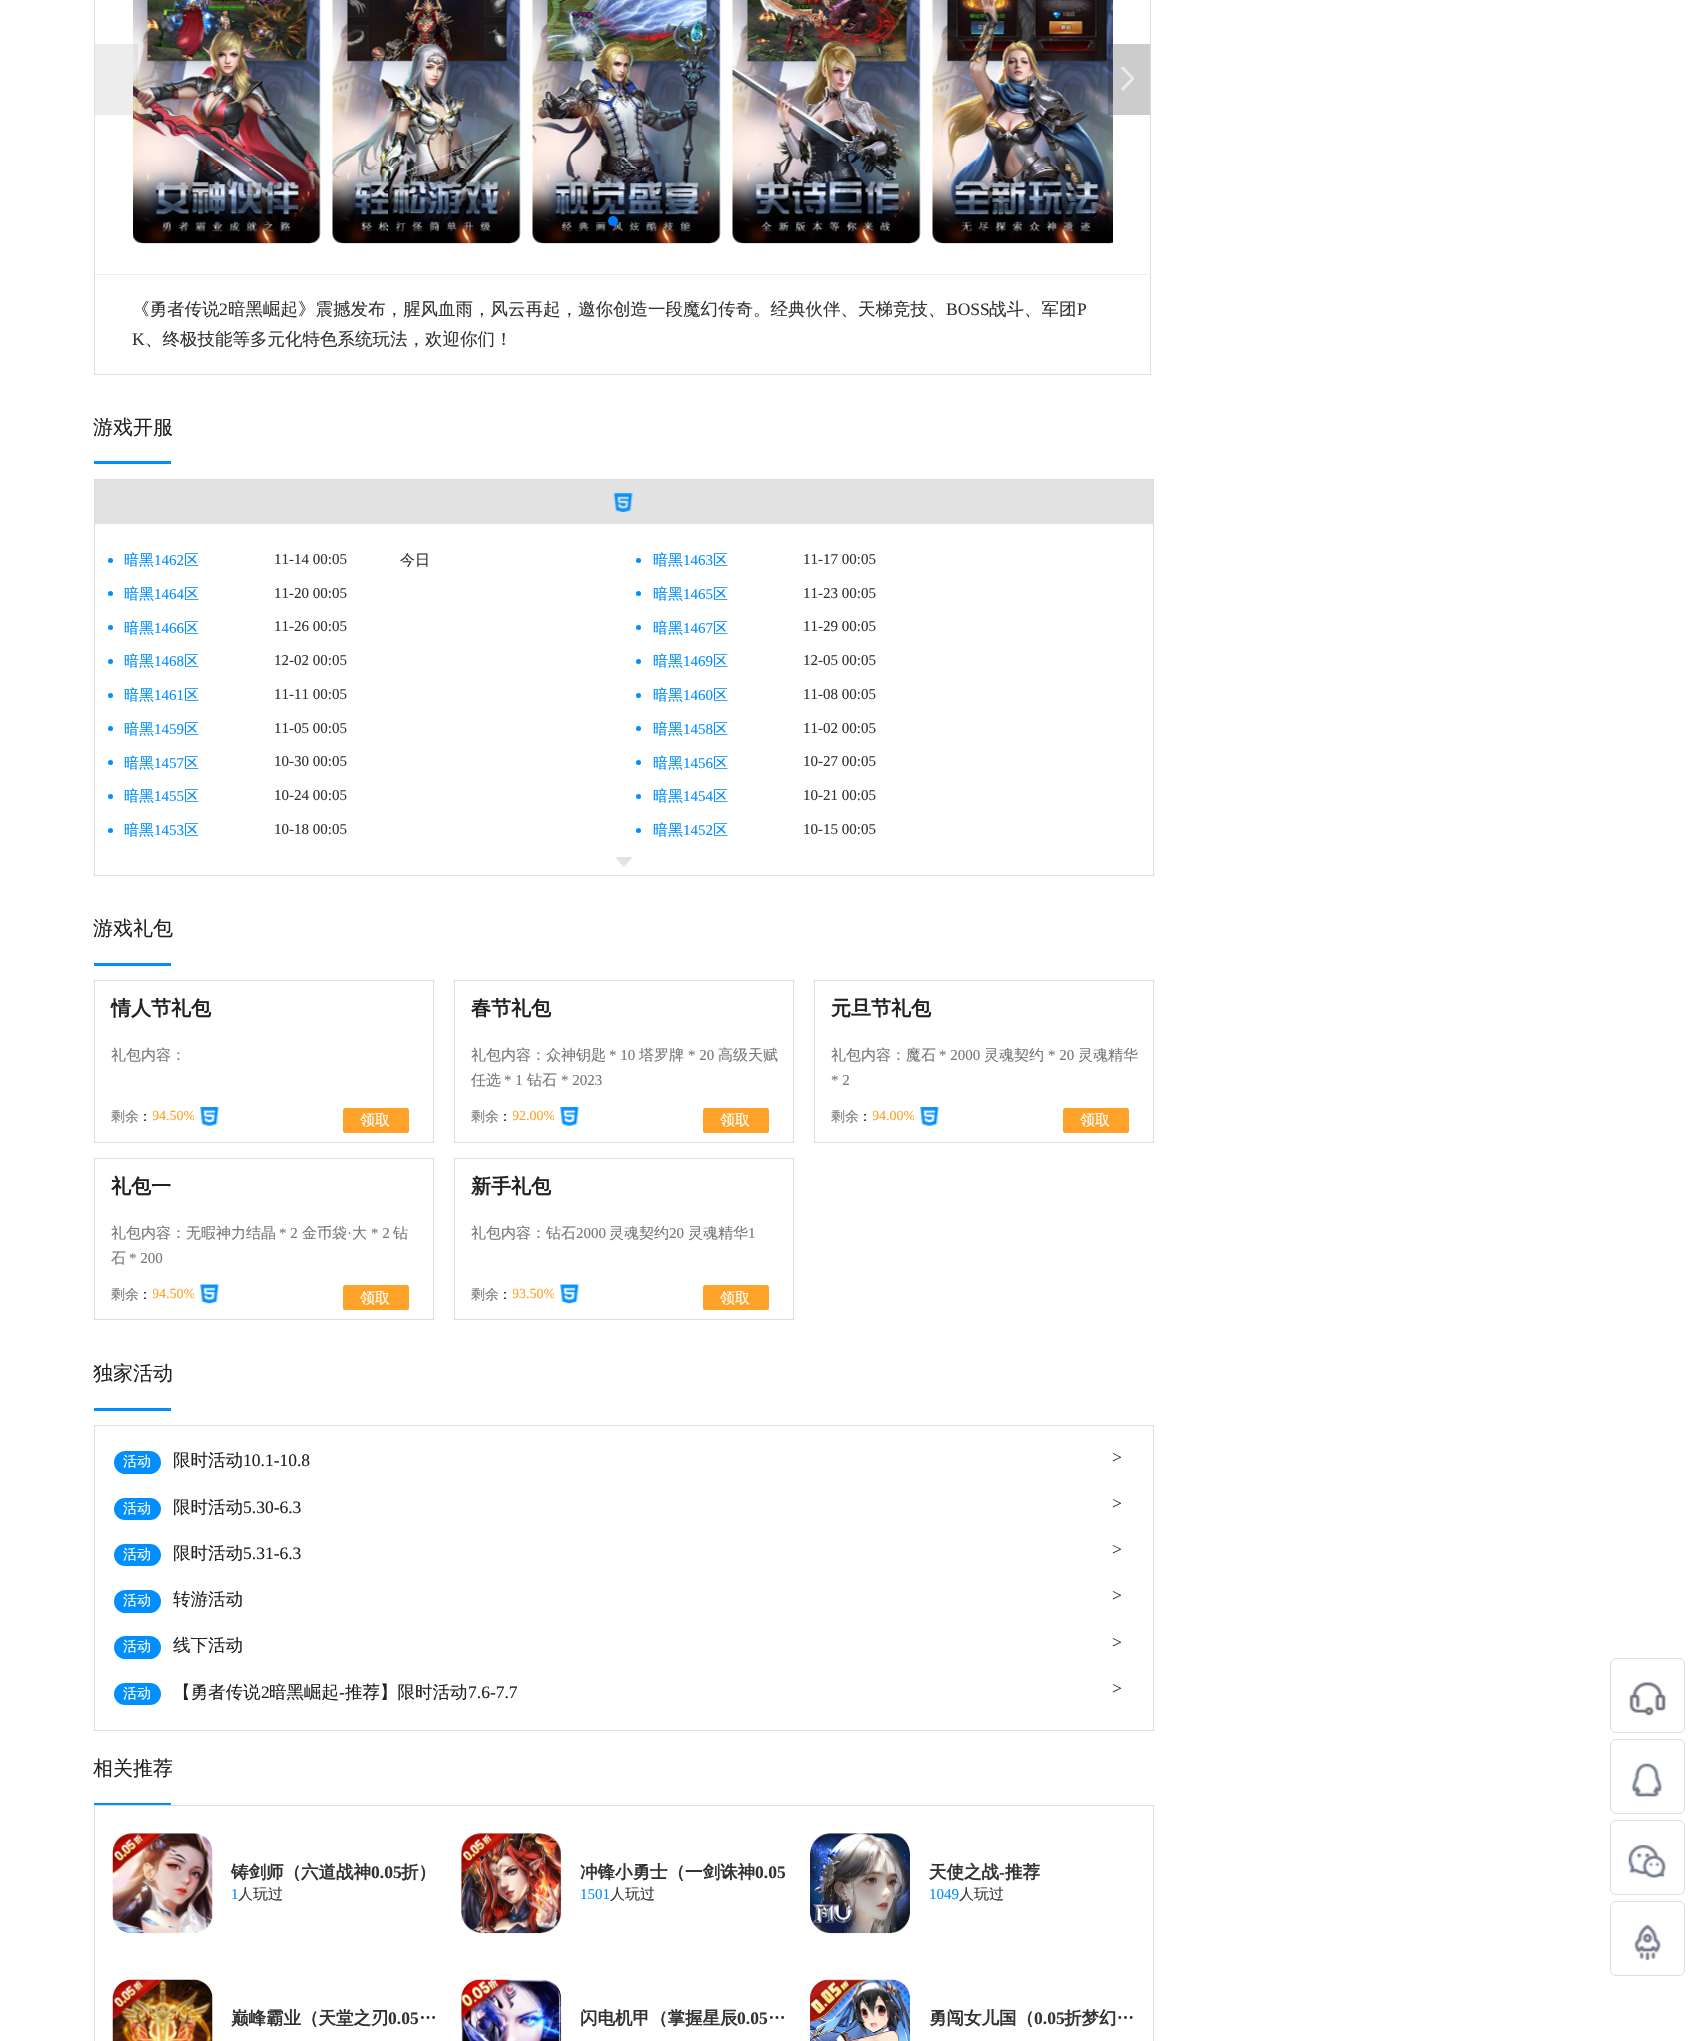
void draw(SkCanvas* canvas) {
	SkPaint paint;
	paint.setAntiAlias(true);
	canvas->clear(0xffffffff);
	paint.setStroke(true);
	paint.setStrokeWidth(1);
	paint.setColor(0xffdddddd);
	canvas->drawRect(SkRect::MakeXYWH(94.5, -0.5, 1056, 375), paint);
	paint.setStroke(false);
	paint.setColor(0xffe2e2e2);
	canvas->drawRoundRect(SkRect::MakeXYWH(133, -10, 187, 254), 10, 10, paint);
	canvas->drawImageRect(SkImages::DeferredFromEncodedData(SkData::MakeFromFileName("img1.png")), SkRect::MakeXYWH(133, 0, 188, 243), SkSamplingOptions());
	paint.setColor(0x12000000);
	canvas->drawRect(SkRect::MakeXYWH(95, 44, 43, 71), paint);
	paint.setColor(0xffe2e2e2);
	canvas->drawRoundRect(SkRect::MakeXYWH(333, -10, 187, 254), 10, 10, paint);
	canvas->drawImageRect(SkImages::DeferredFromEncodedData(SkData::MakeFromFileName("img2.png")), SkRect::MakeXYWH(332, 0, 189, 243), SkSamplingOptions());
	canvas->drawRoundRect(SkRect::MakeXYWH(533, -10, 187, 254), 10, 10, paint);
	canvas->drawImageRect(SkImages::DeferredFromEncodedData(SkData::MakeFromFileName("img3.png")), SkRect::MakeXYWH(532, 0, 189, 243), SkSamplingOptions());
	canvas->drawRoundRect(SkRect::MakeXYWH(733, -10, 187, 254), 10, 10, paint);
	canvas->drawImageRect(SkImages::DeferredFromEncodedData(SkData::MakeFromFileName("img4.png")), SkRect::MakeXYWH(732, 0, 189, 243), SkSamplingOptions());
	canvas->save();
	canvas->clipRect(SkRect::MakeXYWH(133, 0, 980, 244));
	canvas->drawRoundRect(SkRect::MakeXYWH(933, -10, 187, 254), 10, 10, paint);
	canvas->restore();
	canvas->drawImageRect(SkImages::DeferredFromEncodedData(SkData::MakeFromFileName("img5.png")), SkRect::MakeXYWH(932, 0, 181, 243), SkSamplingOptions());
	paint.setColor(0xff007aff);
	canvas->drawCircle(613, 221, 5, paint);
	paint.setColor(0x33000000);
	canvas->drawCircle(633, 221, 5, paint);
	canvas->drawRect(SkRect::MakeXYWH(1108, 44, 42, 71), paint);
	canvas->drawImageRect(SkImages::DeferredFromEncodedData(SkData::MakeFromFileName("img6.png")), SkRect::MakeXYWH(1121, 67, 13, 24), SkSamplingOptions());
	paint.setColor(0xffeeeeee);
	canvas->drawRect(SkRect::MakeXYWH(95, 274, 1056, 1), paint);
	SkFont f1(fontMgr->matchFamilyStyle("WenQuanYi Zen Hei", SkFontStyle(500, SkFontStyle::kNormal_Width, SkFontStyle::kUpright_Slant)), 17.5);
	f1.setSubpixel(true);
	paint.setColor(0xff333333);
	canvas->drawString("《勇者传说", 132, 315, f1, paint);
	SkFont f2(fontMgr->matchFamilyStyle("Liberation Serif", SkFontStyle::Normal()), 17.5);
	f2.setSubpixel(true);
	canvas->drawString("2", 219, 315, f2, paint);
	canvas->drawString("暗黑崛起》震撼发布，腥风血雨，风云再起，邀你创造一段魔幻传奇。经典伙伴、天梯竞技、", 228, 315, f1, paint);
	canvas->drawString("BOSS", 946, 315, f2, paint);
	canvas->drawString("战斗、军团", 989, 315, f1, paint);
	canvas->drawString("P", 1077, 315, f2, paint);
	canvas->drawString("K", 132, 345, f2, paint);
	canvas->drawString("、终极技能等多元化特色系统玩法，欢迎你们！", 145, 345, f1, paint);
	SkFont f3(fontMgr->matchFamilyStyle("WenQuanYi Zen Hei", SkFontStyle(500, SkFontStyle::kNormal_Width, SkFontStyle::kUpright_Slant)), 20);
	f3.setSubpixel(true);
	paint.setColor(0xff222222);
	canvas->drawString("游戏开服", 93, 434, f3, paint);
	paint.setColor(0xff018fff);
	canvas->drawRect(SkRect::MakeXYWH(94, 461, 77, 3), paint);
	paint.setStroke(true);
	paint.setColor(0xffdddddd);
	canvas->drawRect(SkRect::MakeXYWH(94.5, 479.5, 1059, 396), paint);
	paint.setStroke(false);
	paint.setColor(0xffe2e2e2);
	canvas->drawRect(SkRect::MakeXYWH(95, 480, 1058, 44), paint);
	canvas->drawImageRect(SkImages::DeferredFromEncodedData(SkData::MakeFromFileName("img7.png")), SkRect::MakeXYWH(613, 493, 20, 19), SkSamplingOptions());
	paint.setColor(0xff018fff);
	canvas->drawCircle(110.5, 560.5, 2.5, paint);
	SkFont f4(fontMgr->matchFamilyStyle("WenQuanYi Zen Hei", SkFontStyle(500, SkFontStyle::kNormal_Width, SkFontStyle::kUpright_Slant)), 15);
	f4.setSubpixel(true);
	paint.setColor(0xff018eff);
	canvas->drawString("暗黑", 124, 565, f4, paint);
	SkFont f5(fontMgr->matchFamilyStyle("Liberation Serif", SkFontStyle::Normal()), 15);
	f5.setSubpixel(true);
	canvas->drawString("1462", 154, 565, f5, paint);
	canvas->drawString("区", 184, 565, f4, paint);
	paint.setColor(0xff333333);
	canvas->drawString("11-14 00:05", 274, 564, f5, paint);
	canvas->drawString("今日", 400, 565, f4, paint);
	paint.setColor(0xff018fff);
	canvas->drawCircle(638.5, 560.5, 2.5, paint);
	paint.setColor(0xff018eff);
	canvas->drawString("暗黑", 653, 565, f4, paint);
	canvas->drawString("1463", 683, 565, f5, paint);
	canvas->drawString("区", 713, 565, f4, paint);
	paint.setColor(0xff333333);
	canvas->drawString("11-17 00:05", 803, 564, f5, paint);
	paint.setColor(0xff018fff);
	canvas->drawCircle(110.5, 593.5, 2.5, paint);
	paint.setColor(0xff018eff);
	canvas->drawString("暗黑", 124, 599, f4, paint);
	canvas->drawString("1464", 154, 599, f5, paint);
	canvas->drawString("区", 184, 599, f4, paint);
	paint.setColor(0xff333333);
	canvas->drawString("11-20 00:05", 274, 598, f5, paint);
	paint.setColor(0xff018fff);
	canvas->drawCircle(638.5, 593.5, 2.5, paint);
	paint.setColor(0xff018eff);
	canvas->drawString("暗黑", 653, 599, f4, paint);
	canvas->drawString("1465", 683, 599, f5, paint);
	canvas->drawString("区", 713, 599, f4, paint);
	paint.setColor(0xff333333);
	canvas->drawString("11-23 00:05", 803, 598, f5, paint);
	paint.setColor(0xff018fff);
	canvas->drawCircle(110.5, 627.5, 2.5, paint);
	paint.setColor(0xff018eff);
	canvas->drawString("暗黑", 124, 633, f4, paint);
	canvas->drawString("1466", 154, 633, f5, paint);
	canvas->drawString("区", 184, 633, f4, paint);
	paint.setColor(0xff333333);
	canvas->drawString("11-26 00:05", 274, 631, f5, paint);
	paint.setColor(0xff018fff);
	canvas->drawCircle(638.5, 627.5, 2.5, paint);
	paint.setColor(0xff018eff);
	canvas->drawString("暗黑", 653, 633, f4, paint);
	canvas->drawString("1467", 683, 633, f5, paint);
	canvas->drawString("区", 713, 633, f4, paint);
	paint.setColor(0xff333333);
	canvas->drawString("11-29 00:05", 803, 631, f5, paint);
	paint.setColor(0xff018fff);
	canvas->drawCircle(110.5, 661.5, 2.5, paint);
	paint.setColor(0xff018eff);
	canvas->drawString("暗黑", 124, 666, f4, paint);
	canvas->drawString("1468", 154, 666, f5, paint);
	canvas->drawString("区", 184, 666, f4, paint);
	paint.setColor(0xff333333);
	canvas->drawString("12-02 00:05", 274, 665, f5, paint);
	paint.setColor(0xff018fff);
	canvas->drawCircle(638.5, 661.5, 2.5, paint);
	paint.setColor(0xff018eff);
	canvas->drawString("暗黑", 653, 666, f4, paint);
	canvas->drawString("1469", 683, 666, f5, paint);
	canvas->drawString("区", 713, 666, f4, paint);
	paint.setColor(0xff333333);
	canvas->drawString("12-05 00:05", 803, 665, f5, paint);
	paint.setColor(0xff018fff);
	canvas->drawCircle(110.5, 695.5, 2.5, paint);
	paint.setColor(0xff018eff);
	canvas->drawString("暗黑", 124, 700, f4, paint);
	canvas->drawString("1461", 154, 700, f5, paint);
	canvas->drawString("区", 184, 700, f4, paint);
	paint.setColor(0xff333333);
	canvas->drawString("11-11 00:05", 274, 699, f5, paint);
	paint.setColor(0xff018fff);
	canvas->drawCircle(638.5, 695.5, 2.5, paint);
	paint.setColor(0xff018eff);
	canvas->drawString("暗黑", 653, 700, f4, paint);
	canvas->drawString("1460", 683, 700, f5, paint);
	canvas->drawString("区", 713, 700, f4, paint);
	paint.setColor(0xff333333);
	canvas->drawString("11-08 00:05", 803, 699, f5, paint);
	paint.setColor(0xff018fff);
	canvas->drawCircle(110.5, 728.5, 2.5, paint);
	paint.setColor(0xff018eff);
	canvas->drawString("暗黑", 124, 734, f4, paint);
	canvas->drawString("1459", 154, 734, f5, paint);
	canvas->drawString("区", 184, 734, f4, paint);
	paint.setColor(0xff333333);
	canvas->drawString("11-05 00:05", 274, 733, f5, paint);
	paint.setColor(0xff018fff);
	canvas->drawCircle(638.5, 728.5, 2.5, paint);
	paint.setColor(0xff018eff);
	canvas->drawString("暗黑", 653, 734, f4, paint);
	canvas->drawString("1458", 683, 734, f5, paint);
	canvas->drawString("区", 713, 734, f4, paint);
	paint.setColor(0xff333333);
	canvas->drawString("11-02 00:05", 803, 733, f5, paint);
	paint.setColor(0xff018fff);
	canvas->drawCircle(110.5, 762.5, 2.5, paint);
	paint.setColor(0xff018eff);
	canvas->drawString("暗黑", 124, 768, f4, paint);
	canvas->drawString("1457", 154, 768, f5, paint);
	canvas->drawString("区", 184, 768, f4, paint);
	paint.setColor(0xff333333);
	canvas->drawString("10-30 00:05", 274, 766, f5, paint);
	paint.setColor(0xff018fff);
	canvas->drawCircle(638.5, 762.5, 2.5, paint);
	paint.setColor(0xff018eff);
	canvas->drawString("暗黑", 653, 768, f4, paint);
	canvas->drawString("1456", 683, 768, f5, paint);
	canvas->drawString("区", 713, 768, f4, paint);
	paint.setColor(0xff333333);
	canvas->drawString("10-27 00:05", 803, 766, f5, paint);
	paint.setColor(0xff018fff);
	canvas->drawCircle(110.5, 796.5, 2.5, paint);
	paint.setColor(0xff018eff);
	canvas->drawString("暗黑", 124, 801, f4, paint);
	canvas->drawString("1455", 154, 801, f5, paint);
	canvas->drawString("区", 184, 801, f4, paint);
	paint.setColor(0xff333333);
	canvas->drawString("10-24 00:05", 274, 800, f5, paint);
	paint.setColor(0xff018fff);
	canvas->drawCircle(638.5, 796.5, 2.5, paint);
	paint.setColor(0xff018eff);
	canvas->drawString("暗黑", 653, 801, f4, paint);
	canvas->drawString("1454", 683, 801, f5, paint);
	canvas->drawString("区", 713, 801, f4, paint);
	paint.setColor(0xff333333);
	canvas->drawString("10-21 00:05", 803, 800, f5, paint);
	paint.setColor(0xff018fff);
	canvas->drawCircle(110.5, 830.5, 2.5, paint);
	paint.setColor(0xff018eff);
	canvas->drawString("暗黑", 124, 835, f4, paint);
	canvas->drawString("1453", 154, 835, f5, paint);
	canvas->drawString("区", 184, 835, f4, paint);
	paint.setColor(0xff333333);
	canvas->drawString("10-18 00:05", 274, 834, f5, paint);
	paint.setColor(0xff018fff);
	canvas->drawCircle(638.5, 830.5, 2.5, paint);
	paint.setColor(0xff018eff);
	canvas->drawString("暗黑", 653, 835, f4, paint);
	canvas->drawString("1452", 683, 835, f5, paint);
	canvas->drawString("区", 713, 835, f4, paint);
	paint.setColor(0xff333333);
	canvas->drawString("10-15 00:05", 803, 834, f5, paint);
	canvas->drawImageRect(SkImages::DeferredFromEncodedData(SkData::MakeFromFileName("img8.png")), SkRect::MakeXYWH(615, 857, 18, 10), SkSamplingOptions());
	paint.setColor(0xff222222);
	canvas->drawString("游戏礼包", 93, 935, f3, paint);
	paint.setColor(0xff018fff);
	canvas->drawRect(SkRect::MakeXYWH(94, 963, 77, 3), paint);
	paint.setStroke(true);
	paint.setColor(0xffdddddd);
	canvas->drawRect(SkRect::MakeXYWH(94.5, 980.5, 339, 162), paint);
	SkFont f6(fontMgr->matchFamilyStyle("WenQuanYi Zen Hei", SkFontStyle::Bold()), 20);
	f6.setSubpixel(true);
	paint.setStroke(false);
	paint.setColor(0xff222222);
	canvas->drawString("情人节礼包", 111, 1015, f6, paint);
	paint.setColor(0xff777777);
	canvas->drawString("礼包内容：", 111, 1060, f4, paint);
	SkFont f7(fontMgr->matchFamilyStyle("WenQuanYi Zen Hei", SkFontStyle(500, SkFontStyle::kNormal_Width, SkFontStyle::kUpright_Slant)), 14);
	f7.setSubpixel(true);
	canvas->drawString("剩余", 111, 1121, f7, paint);
	paint.setColor(0xff222222);
	canvas->drawString("：", 138, 1121, f7, paint);
	canvas->save();
	canvas->clipRect(SkRect::MakeXYWH(153, 1108, 41, 15));
	SkFont f8(fontMgr->matchFamilyStyle("Liberation Serif", SkFontStyle::Normal()), 14);
	f8.setSubpixel(true);
	paint.setColor(0xffffa229);
	canvas->drawString("94.50%", 152, 1120, f8, paint);
	canvas->restore();
	canvas->drawImageRect(SkImages::DeferredFromEncodedData(SkData::MakeFromFileName("img9.png")), SkRect::MakeXYWH(200, 1107, 19, 19), SkSamplingOptions());
	canvas->drawRoundRect(SkRect::MakeXYWH(343, 1108, 66, 25), 2.5, 2.5, paint);
	paint.setColor(0xffffffff);
	canvas->drawString("领取", 360, 1125, f4, paint);
	paint.setStroke(true);
	paint.setColor(0xffdddddd);
	canvas->drawRect(SkRect::MakeXYWH(454.5, 980.5, 339, 162), paint);
	paint.setStroke(false);
	paint.setColor(0xff222222);
	canvas->drawString("春节礼包", 471, 1015, f6, paint);
	paint.setColor(0xff777777);
	canvas->drawString("礼包内容：众神钥匙", 471, 1060, f4, paint);
	canvas->drawString("* 10", 609, 1060, f5, paint);
	canvas->drawString("塔罗牌", 639, 1060, f4, paint);
	canvas->drawString("* 20", 688, 1060, f5, paint);
	canvas->drawString("高级天赋", 718, 1060, f4, paint);
	canvas->drawString("任选", 471, 1085, f4, paint);
	canvas->drawString("* 1", 504, 1085, f5, paint);
	canvas->drawString("钻石", 527, 1085, f4, paint);
	canvas->drawString("* 2023", 561, 1085, f5, paint);
	canvas->drawString("剩余", 471, 1121, f7, paint);
	paint.setColor(0xff222222);
	canvas->drawString("：", 498, 1121, f7, paint);
	canvas->save();
	canvas->clipRect(SkRect::MakeXYWH(513, 1108, 41, 15));
	paint.setColor(0xffffa229);
	canvas->drawString("92.00%", 512, 1120, f8, paint);
	canvas->restore();
	canvas->drawImageRect(SkImages::DeferredFromEncodedData(SkData::MakeFromFileName("img10.png")), SkRect::MakeXYWH(560, 1107, 19, 19), SkSamplingOptions());
	canvas->drawRoundRect(SkRect::MakeXYWH(703, 1108, 66, 25), 2.5, 2.5, paint);
	paint.setColor(0xffffffff);
	canvas->drawString("领取", 720, 1125, f4, paint);
	paint.setStroke(true);
	paint.setColor(0xffdddddd);
	canvas->drawRect(SkRect::MakeXYWH(814.5, 980.5, 339, 162), paint);
	paint.setStroke(false);
	paint.setColor(0xff222222);
	canvas->drawString("元旦节礼包", 831, 1015, f6, paint);
	paint.setColor(0xff777777);
	canvas->drawString("礼包内容：魔石", 831, 1060, f4, paint);
	canvas->drawString("* 2000", 939, 1060, f5, paint);
	canvas->drawString("灵魂契约", 984, 1060, f4, paint);
	canvas->drawString("* 20", 1048, 1060, f5, paint);
	canvas->drawString("灵魂精华", 1078, 1060, f4, paint);
	canvas->drawString("* 2", 831, 1085, f5, paint);
	canvas->drawString("剩余", 831, 1121, f7, paint);
	paint.setColor(0xff222222);
	canvas->drawString("：", 858, 1121, f7, paint);
	canvas->save();
	canvas->clipRect(SkRect::MakeXYWH(873, 1108, 41, 15));
	paint.setColor(0xffffa229);
	canvas->drawString("94.00%", 872, 1120, f8, paint);
	canvas->restore();
	canvas->drawImageRect(SkImages::DeferredFromEncodedData(SkData::MakeFromFileName("img9.png")), SkRect::MakeXYWH(920, 1107, 19, 19), SkSamplingOptions());
	canvas->drawRoundRect(SkRect::MakeXYWH(1063, 1108, 66, 25), 2.5, 2.5, paint);
	paint.setColor(0xffffffff);
	canvas->drawString("领取", 1080, 1125, f4, paint);
	paint.setStroke(true);
	paint.setColor(0xffdddddd);
	canvas->drawRect(SkRect::MakeXYWH(94.5, 1158.5, 339, 161), paint);
	paint.setStroke(false);
	paint.setColor(0xff222222);
	canvas->drawString("礼包一", 111, 1193, f6, paint);
	paint.setColor(0xff777777);
	canvas->drawString("礼包内容：无暇神力结晶", 111, 1238, f4, paint);
	canvas->drawString("* 2", 279, 1238, f5, paint);
	canvas->drawString("金币袋", 302, 1238, f4, paint);
	canvas->drawString("·", 347, 1238, f5, paint);
	canvas->drawString("大", 352, 1238, f4, paint);
	canvas->drawString("* 2", 371, 1238, f5, paint);
	canvas->drawString("钻", 393, 1238, f4, paint);
	canvas->drawString("石", 111, 1263, f4, paint);
	canvas->drawString("* 200", 129, 1263, f5, paint);
	canvas->drawString("剩余", 111, 1299, f7, paint);
	paint.setColor(0xff222222);
	canvas->drawString("：", 138, 1299, f7, paint);
	canvas->save();
	canvas->clipRect(SkRect::MakeXYWH(153, 1285, 41, 15));
	paint.setColor(0xffffa229);
	canvas->drawString("94.50%", 152, 1298, f8, paint);
	canvas->restore();
	canvas->drawImageRect(SkImages::DeferredFromEncodedData(SkData::MakeFromFileName("img11.png")), SkRect::MakeXYWH(200, 1284, 19, 20), SkSamplingOptions());
	canvas->drawRoundRect(SkRect::MakeXYWH(343, 1285, 66, 25), 2.5, 2.5, paint);
	paint.setColor(0xffffffff);
	canvas->drawString("领取", 360, 1303, f4, paint);
	paint.setStroke(true);
	paint.setColor(0xffdddddd);
	canvas->drawRect(SkRect::MakeXYWH(454.5, 1158.5, 339, 161), paint);
	paint.setStroke(false);
	paint.setColor(0xff222222);
	canvas->drawString("新手礼包", 471, 1193, f6, paint);
	paint.setColor(0xff777777);
	canvas->drawString("礼包内容：钻石", 471, 1238, f4, paint);
	canvas->drawString("2000", 576, 1238, f5, paint);
	canvas->drawString("灵魂契约", 609, 1238, f4, paint);
	canvas->drawString("20", 669, 1238, f5, paint);
	canvas->drawString("灵魂精华", 688, 1238, f4, paint);
	canvas->drawString("1", 748, 1238, f5, paint);
	canvas->drawString("剩余", 471, 1299, f7, paint);
	paint.setColor(0xff222222);
	canvas->drawString("：", 498, 1299, f7, paint);
	canvas->save();
	canvas->clipRect(SkRect::MakeXYWH(513, 1285, 41, 15));
	paint.setColor(0xffffa229);
	canvas->drawString("93.50%", 512, 1298, f8, paint);
	canvas->restore();
	canvas->drawImageRect(SkImages::DeferredFromEncodedData(SkData::MakeFromFileName("img12.png")), SkRect::MakeXYWH(560, 1284, 19, 20), SkSamplingOptions());
	canvas->drawRoundRect(SkRect::MakeXYWH(703, 1285, 66, 25), 2.5, 2.5, paint);
	paint.setColor(0xffffffff);
	canvas->drawString("领取", 720, 1303, f4, paint);
	paint.setColor(0xff222222);
	canvas->drawString("独家活动", 93, 1380, f3, paint);
	paint.setColor(0xff018fff);
	canvas->drawRect(SkRect::MakeXYWH(94, 1408, 77, 3), paint);
	paint.setStroke(true);
	paint.setColor(0xffdddddd);
	canvas->drawRect(SkRect::MakeXYWH(94.5, 1425.5, 1059, 305), paint);
	paint.setStroke(false);
	paint.setColor(0xff018fff);
	canvas->drawRoundRect(SkRect::MakeXYWH(114, 1451, 47, 23), 11.5, 11.5, paint);
	paint.setColor(0xffffffff);
	canvas->drawString("活动", 123, 1466, f7, paint);
	paint.setColor(0xff222222);
	canvas->drawString("限时活动", 173, 1466, f1, paint);
	canvas->drawString("10.1-10.8", 243, 1466, f2, paint);
	paint.setColor(0xff333333);
	canvas->drawString(">", 1112, 1463, f2, paint);
	paint.setColor(0xff018fff);
	canvas->drawRoundRect(SkRect::MakeXYWH(114, 1498, 47, 22), 11, 11, paint);
	paint.setColor(0xffffffff);
	canvas->drawString("活动", 123, 1513, f7, paint);
	paint.setColor(0xff222222);
	canvas->drawString("限时活动", 173, 1513, f1, paint);
	canvas->drawString("5.30-6.3", 243, 1513, f2, paint);
	paint.setColor(0xff333333);
	canvas->drawString(">", 1112, 1509, f2, paint);
	paint.setColor(0xff018fff);
	canvas->drawRoundRect(SkRect::MakeXYWH(114, 1544, 47, 22), 11, 11, paint);
	paint.setColor(0xffffffff);
	canvas->drawString("活动", 123, 1559, f7, paint);
	paint.setColor(0xff222222);
	canvas->drawString("限时活动", 173, 1559, f1, paint);
	canvas->drawString("5.31-6.3", 243, 1559, f2, paint);
	paint.setColor(0xff333333);
	canvas->drawString(">", 1112, 1555, f2, paint);
	paint.setColor(0xff018fff);
	canvas->drawRoundRect(SkRect::MakeXYWH(114, 1590, 47, 23), 11.5, 11.5, paint);
	paint.setColor(0xffffffff);
	canvas->drawString("活动", 123, 1605, f7, paint);
	paint.setColor(0xff222222);
	canvas->drawString("转游活动", 173, 1605, f1, paint);
	paint.setColor(0xff333333);
	canvas->drawString(">", 1112, 1601, f2, paint);
	paint.setColor(0xff018fff);
	canvas->drawRoundRect(SkRect::MakeXYWH(114, 1636, 47, 23), 11.5, 11.5, paint);
	paint.setColor(0xffffffff);
	canvas->drawString("活动", 123, 1651, f7, paint);
	paint.setColor(0xff222222);
	canvas->drawString("线下活动", 173, 1651, f1, paint);
	paint.setColor(0xff333333);
	canvas->drawString(">", 1112, 1648, f2, paint);
	paint.setColor(0xff018fff);
	canvas->drawRoundRect(SkRect::MakeXYWH(114, 1683, 47, 22), 11, 11, paint);
	paint.setColor(0xffffffff);
	canvas->drawString("活动", 123, 1698, f7, paint);
	paint.setColor(0xff222222);
	canvas->drawString("【勇者传说", 173, 1698, f1, paint);
	canvas->drawString("2", 261, 1698, f2, paint);
	canvas->drawString("暗黑崛起", 269, 1698, f1, paint);
	canvas->drawString("-", 339, 1698, f2, paint);
	canvas->drawString("推荐】限时活动", 345, 1698, f1, paint);
	canvas->drawString("7.6-7.7", 468, 1698, f2, paint);
	paint.setColor(0xff333333);
	canvas->drawString(">", 1112, 1694, f2, paint);
	paint.setColor(0xff222222);
	canvas->drawString("相关推荐", 93, 1775, f3, paint);
	paint.setColor(0xff018fff);
	canvas->drawRect(SkRect::MakeXYWH(94, 1803, 77, 2), paint);
	paint.setStroke(true);
	paint.setColor(0xffdddddd);
	canvas->drawRect(SkRect::MakeXYWH(94.5, 1805.5, 1059, 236), paint);
	canvas->drawImageRect(SkImages::DeferredFromEncodedData(SkData::MakeFromFileName("img13.png")), SkRect::MakeXYWH(112, 1833, 101, 101), SkSamplingOptions());
	SkFont f9(fontMgr->matchFamilyStyle("WenQuanYi Zen Hei", SkFontStyle::Bold()), 17.5);
	f9.setSubpixel(true);
	paint.setStroke(false);
	paint.setColor(0xff333333);
	canvas->drawString("铸剑师（六道战神", 231, 1878, f9, paint);
	SkFont f10(fontMgr->matchFamilyStyle("Liberation Serif", SkFontStyle::Bold()), 17.5);
	f10.setSubpixel(true);
	canvas->drawString("0.05", 371, 1878, f10, paint);
	canvas->drawString("折）", 401, 1878, f9, paint);
	paint.setColor(0xff018eff);
	canvas->drawString("1", 231, 1899, f5, paint);
	paint.setColor(0xff333333);
	canvas->drawString("人玩过", 238, 1899, f4, paint);
	canvas->drawImageRect(SkImages::DeferredFromEncodedData(SkData::MakeFromFileName("img14.png")), SkRect::MakeXYWH(461, 1833, 101, 101), SkSamplingOptions());
	canvas->drawString("冲锋小勇士（一剑诛神", 580, 1878, f9, paint);
	canvas->drawString("0.05", 755, 1878, f10, paint);
	paint.setColor(0xff018eff);
	canvas->drawString("1501", 580, 1899, f5, paint);
	paint.setColor(0xff333333);
	canvas->drawString("人玩过", 610, 1899, f4, paint);
	canvas->drawImageRect(SkImages::DeferredFromEncodedData(SkData::MakeFromFileName("img15.png")), SkRect::MakeXYWH(810, 1833, 100, 101), SkSamplingOptions());
	canvas->drawString("天使之战", 929, 1878, f9, paint);
	canvas->drawString("-", 999, 1878, f10, paint);
	canvas->drawString("推荐", 1005, 1878, f9, paint);
	paint.setColor(0xff018eff);
	canvas->drawString("1049", 929, 1899, f5, paint);
	paint.setColor(0xff333333);
	canvas->drawString("人玩过", 959, 1899, f4, paint);
	canvas->drawImageRect(SkImages::DeferredFromEncodedData(SkData::MakeFromFileName("img16.png")), SkRect::MakeXYWH(112, 1979, 101, 62), SkSamplingOptions());
	canvas->drawString("巅峰霸业（天堂之刃", 231, 2024, f9, paint);
	canvas->drawString("0.05", 388, 2024, f10, paint);
	canvas->drawString("…", 419, 2024, f9, paint);
	canvas->drawImageRect(SkImages::DeferredFromEncodedData(SkData::MakeFromFileName("img17.png")), SkRect::MakeXYWH(461, 1979, 101, 62), SkSamplingOptions());
	canvas->drawString("闪电机甲（掌握星辰", 580, 2024, f9, paint);
	canvas->drawString("0.05", 737, 2024, f10, paint);
	canvas->drawString("…", 768, 2024, f9, paint);
	canvas->drawImageRect(SkImages::DeferredFromEncodedData(SkData::MakeFromFileName("img18.png")), SkRect::MakeXYWH(810, 1979, 100, 62), SkSamplingOptions());
	canvas->drawString("勇闯女儿国（", 929, 2024, f9, paint);
	canvas->drawString("0.05", 1034, 2024, f10, paint);
	canvas->drawString("折梦幻…", 1064, 2024, f9, paint);
	paint.setStroke(true);
	paint.setColor(0xffdddddd);
	canvas->drawRoundRect(SkRect::MakeXYWH(1610.5, 1658.5, 74, 74), 5.5, 5.5, paint);
	canvas->drawImageRect(SkImages::DeferredFromEncodedData(SkData::MakeFromFileName("img19.png")), SkRect::MakeXYWH(1629, 1682, 37, 34), SkSamplingOptions());
	canvas->drawRoundRect(SkRect::MakeXYWH(1610.5, 1739.5, 74, 74), 5.5, 5.5, paint);
	canvas->drawImageRect(SkImages::DeferredFromEncodedData(SkData::MakeFromFileName("img20.png")), SkRect::MakeXYWH(1631, 1763, 31, 34), SkSamplingOptions());
	canvas->drawRoundRect(SkRect::MakeXYWH(1610.5, 1820.5, 74, 74), 5.5, 5.5, paint);
	canvas->drawImageRect(SkImages::DeferredFromEncodedData(SkData::MakeFromFileName("img21.png")), SkRect::MakeXYWH(1628, 1844, 38, 34), SkSamplingOptions());
	canvas->drawRoundRect(SkRect::MakeXYWH(1610.5, 1901.5, 74, 74), 5.5, 5.5, paint);
	canvas->drawImageRect(SkImages::DeferredFromEncodedData(SkData::MakeFromFileName("img22.png")), SkRect::MakeXYWH(1634, 1924, 27, 37), SkSamplingOptions());
}
